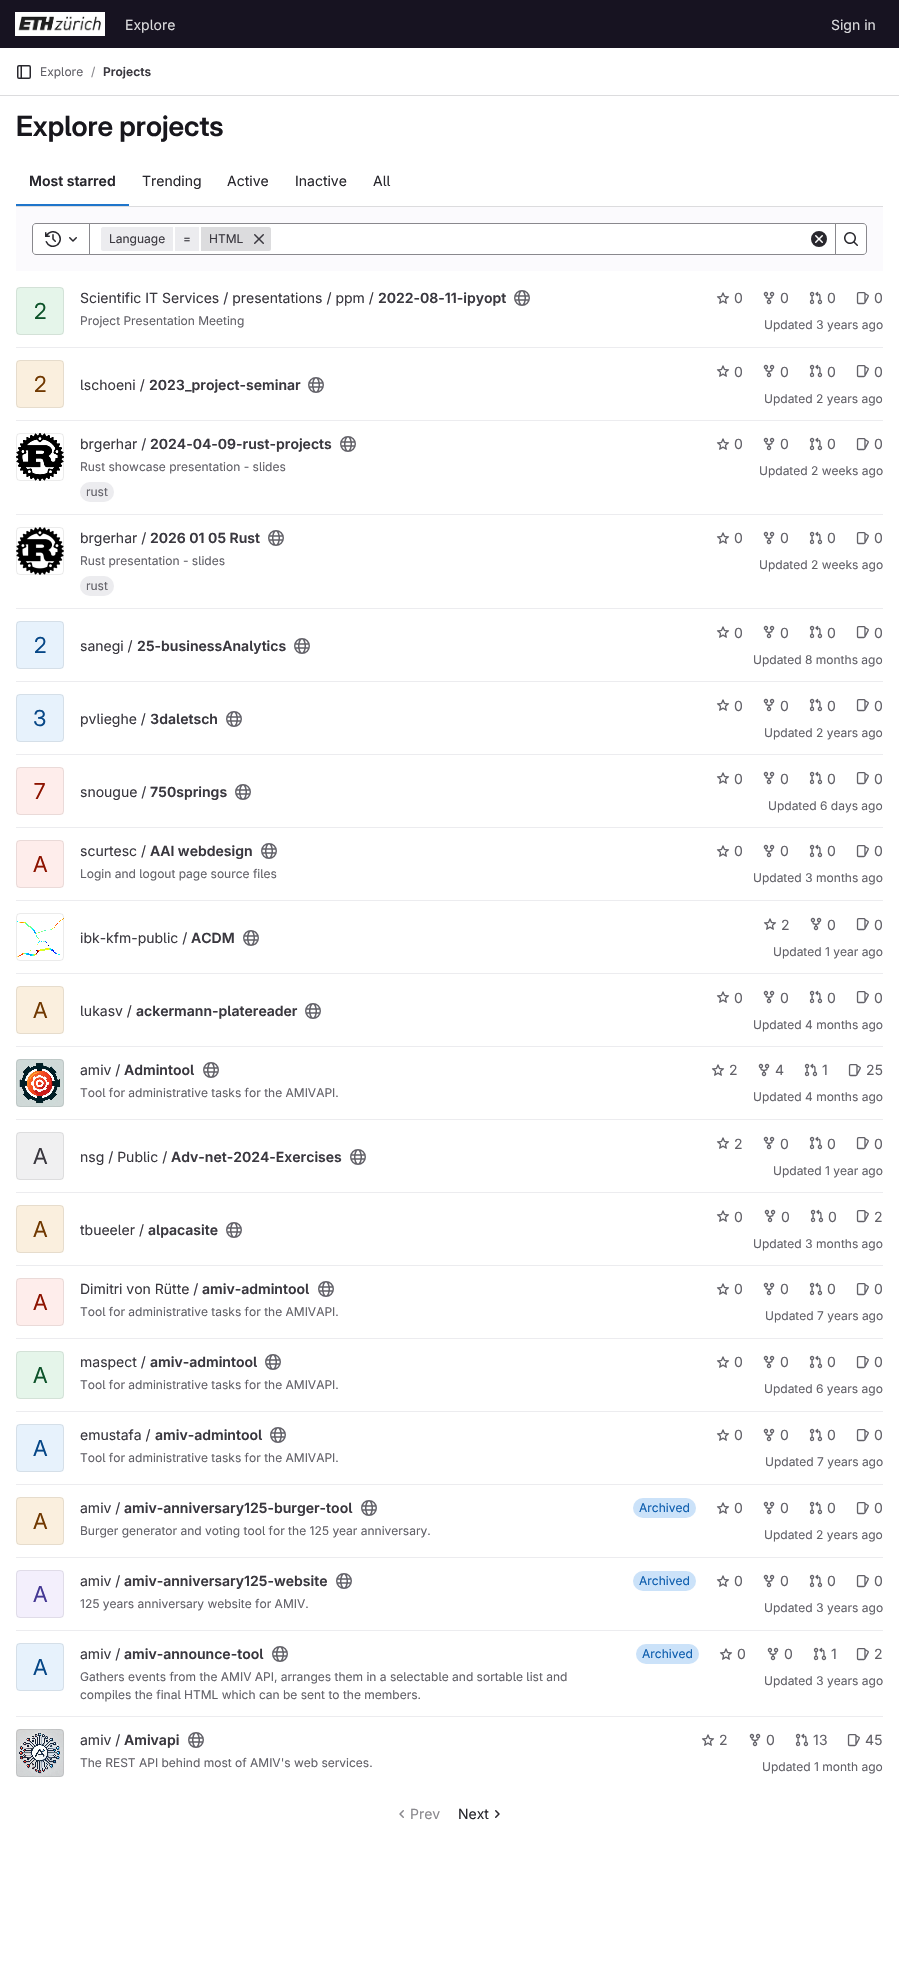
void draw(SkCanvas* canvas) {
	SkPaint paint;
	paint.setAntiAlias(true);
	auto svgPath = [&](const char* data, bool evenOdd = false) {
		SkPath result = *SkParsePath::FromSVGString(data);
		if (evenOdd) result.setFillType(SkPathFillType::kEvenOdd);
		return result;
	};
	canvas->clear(0xffffffff);
	paint.setColor(0xff171321);
	canvas->drawRect(SkRect::MakeXYWH(0, 0, 899, 48), paint);
	canvas->drawImageRect(SkImages::DeferredFromEncodedData(SkData::MakeFromFileName("img1.png")), SkRect::MakeXYWH(15, 12, 90, 24), SkSamplingOptions());
	SkFont f1(fontMgr->matchFamilyStyle("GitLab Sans", SkFontStyle::Normal()), 14);
	f1.setSubpixel(true);
	paint.setColor(0xffdcdcde);
	canvas->drawString("Explore", 125, 30, f1, paint);
	canvas->drawString("Sign in", 831, 30, f1, paint);
	canvas->drawRect(SkRect::MakeXYWH(0, 95, 899, 1), paint);
	canvas->drawImageRect(SkImages::DeferredFromEncodedData(SkData::MakeFromFileName("img2.png")), SkRect::MakeXYWH(17, 65, 14, 14), SkSamplingOptions());
	SkFont f2(fontMgr->matchFamilyStyle("GitLab Sans", SkFontStyle::Normal()), 12);
	f2.setSubpixel(true);
	paint.setColor(0xff626168);
	canvas->drawString("Explore", 40, 76, f2, paint);
	paint.setColor(0xff89888d);
	canvas->drawString("/", 91, 76, f2, paint);
	SkFont f3(fontMgr->matchFamilyStyle("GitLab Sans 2", SkFontStyle(600, SkFontStyle::kNormal_Width, SkFontStyle::kUpright_Slant)), 12);
	f3.setSubpixel(true);
	paint.setColor(0xff3a383f);
	canvas->drawString("Projects", 103, 76, f3, paint);
	SkFont f4(fontMgr->matchFamilyStyle("GitLab Sans", SkFontStyle(600, SkFontStyle::kNormal_Width, SkFontStyle::kUpright_Slant)), 28);
	f4.setSubpixel(true);
	paint.setColor(0xff18171d);
	canvas->drawString("Explore projects", 16, 136, f4, paint);
	SkFont f5(fontMgr->matchFamilyStyle("GitLab Sans 2", SkFontStyle(600, SkFontStyle::kNormal_Width, SkFontStyle::kUpright_Slant)), 14);
	f5.setSubpixel(true);
	paint.setColor(0xff28272d);
	canvas->drawString("Most starred", 29, 186, f5, paint);
	paint.setColor(0xff1f75cb);
	canvas->drawRect(SkRect::MakeXYWH(16, 204, 113, 2), paint);
	paint.setColor(0xff28272d);
	canvas->drawString("Trending", 142, 186, f1, paint);
	canvas->drawString("Active", 227, 186, f1, paint);
	canvas->drawString("Inactive", 295, 186, f1, paint);
	canvas->drawString("All", 373, 186, f1, paint);
	paint.setColor(0xfffbfafd);
	canvas->drawRect(SkRect::MakeXYWH(16, 207, 867, 64), paint);
	paint.setColor(0xffdcdcde);
	canvas->drawRect(SkRect::MakeXYWH(16, 206, 867, 1), paint);
	paint.setColor(0xffffffff);
	canvas->drawRect(SkRect::MakeXYWH(89.5, 223.5, 746, 31), paint);
	paint.setStroke(true);
	paint.setStrokeWidth(1);
	paint.setColor(0xff89888d);
	canvas->drawRect(SkRect::MakeXYWH(89.5, 223.5, 746, 31), paint);
	paint.setStroke(false);
	paint.setColor(0xffffffff);
	canvas->drawPath(svgPath("M36 223.5H89.5V254.5H36C34 254.5 32.5 253 32.5 251V227C32.5 225 34 223.5 36 223.5Z"), paint);
	paint.setStroke(true);
	paint.setColor(0xff89888d);
	canvas->drawPath(svgPath("M36 223.5H89.5V254.5H36C34 254.5 32.5 253 32.5 251V227C32.5 225 34 223.5 36 223.5Z"), paint);
	canvas->drawImageRect(SkImages::DeferredFromEncodedData(SkData::MakeFromFileName("img3.png")), SkRect::MakeXYWH(45, 231, 16, 16), SkSamplingOptions());
	canvas->drawImageRect(SkImages::DeferredFromEncodedData(SkData::MakeFromFileName("img4.png")), SkRect::MakeXYWH(69, 237, 8, 5), SkSamplingOptions());
	paint.setStroke(false);
	paint.setColor(0xffececef);
	canvas->drawPath(svgPath("M103 227H173V251H103C102 251 101 250 101 249V229C101 228 102 227 103 227Z"), paint);
	paint.setColor(0xff3a383f);
	canvas->drawString("Language", 109, 243, f2, paint);
	paint.setColor(0xffececef);
	canvas->drawRect(SkRect::MakeXYWH(175, 227, 24, 24), paint);
	paint.setColor(0xff3a383f);
	canvas->drawString("=", 183, 243, f2, paint);
	paint.setColor(0xffdcdcde);
	canvas->drawPath(svgPath("M201 227H269C270 227 271 228 271 229V249C271 250 270 251 269 251H201Z"), paint);
	paint.setColor(0xff3a383f);
	canvas->drawString("HTML", 209, 243, f2, paint);
	canvas->drawImageRect(SkImages::DeferredFromEncodedData(SkData::MakeFromFileName("img5.png")), SkRect::MakeXYWH(254, 234, 10, 10), SkSamplingOptions());
	canvas->drawImageRect(SkImages::DeferredFromEncodedData(SkData::MakeFromFileName("img6.png")), SkRect::MakeXYWH(811, 231, 16, 16), SkSamplingOptions());
	paint.setColor(0xffffffff);
	canvas->drawPath(svgPath("M835.5 223.5H863C865 223.5 866.5 225 866.5 227V251C866.5 253 865 254.5 863 254.5H835.5Z"), paint);
	paint.setStroke(true);
	paint.setColor(0xff89888d);
	canvas->drawPath(svgPath("M835.5 223.5H863C865 223.5 866.5 225 866.5 227V251C866.5 253 865 254.5 863 254.5H835.5Z"), paint);
	canvas->drawImageRect(SkImages::DeferredFromEncodedData(SkData::MakeFromFileName("img7.png")), SkRect::MakeXYWH(844, 232, 14, 14), SkSamplingOptions());
	paint.setStroke(false);
	paint.setColor(0xffececef);
	canvas->drawRect(SkRect::MakeXYWH(16, 347, 867, 1), paint);
	paint.setColor(0xffe5f5ea);
	canvas->drawRoundRect(SkRect::MakeXYWH(16, 287, 48, 48), 4, 4, paint);
	paint.setStroke(true);
	paint.setColor(0x14050506);
	canvas->drawRoundRect(SkRect::MakeXYWH(16.5, 287.5, 47, 47), 3.5, 3.5, paint);
	SkFont f6(fontMgr->matchFamilyStyle("GitLab Sans 2", SkFontStyle::Normal()), 22);
	f6.setSubpixel(true);
	paint.setStroke(false);
	paint.setColor(0xff0d532a);
	canvas->drawString("2", 34, 319, f6, paint);
	paint.setColor(0xff3a383f);
	canvas->drawString("Scientific IT Services / presentations / ppm /", 80, 303, f1, paint);
	canvas->drawString("2022-08-11-ipyopt", 378, 303, f5, paint);
	canvas->drawImageRect(SkImages::DeferredFromEncodedData(SkData::MakeFromFileName("img8.png")), SkRect::MakeXYWH(514, 290, 16, 16), SkSamplingOptions());
	paint.setColor(0xff626168);
	canvas->drawString("Project Presentation Meeting", 80, 325, f2, paint);
	canvas->drawImageRect(SkImages::DeferredFromEncodedData(SkData::MakeFromFileName("img9.png")), SkRect::MakeXYWH(716, 292, 14, 12), SkSamplingOptions());
	canvas->drawString("0", 734, 303, f1, paint);
	canvas->drawImageRect(SkImages::DeferredFromEncodedData(SkData::MakeFromFileName("img10.png")), SkRect::MakeXYWH(763, 291, 12, 14), SkSamplingOptions());
	canvas->drawString("0", 780, 303, f1, paint);
	canvas->drawImageRect(SkImages::DeferredFromEncodedData(SkData::MakeFromFileName("img11.png")), SkRect::MakeXYWH(809, 291, 14, 14), SkSamplingOptions());
	canvas->drawString("0", 827, 303, f1, paint);
	canvas->drawImageRect(SkImages::DeferredFromEncodedData(SkData::MakeFromFileName("img12.png")), SkRect::MakeXYWH(856, 292, 13, 13), SkSamplingOptions());
	canvas->drawString("0", 874, 303, f1, paint);
	canvas->drawString("Updated 3 years ago", 764, 329, f2, paint);
	paint.setColor(0xffececef);
	canvas->drawRect(SkRect::MakeXYWH(16, 420, 867, 1), paint);
	paint.setColor(0xfffaefde);
	canvas->drawRoundRect(SkRect::MakeXYWH(16, 360, 48, 48), 4, 4, paint);
	paint.setStroke(true);
	paint.setColor(0x14050506);
	canvas->drawRoundRect(SkRect::MakeXYWH(16.5, 360.5, 47, 47), 3.5, 3.5, paint);
	paint.setStroke(false);
	paint.setColor(0xff703800);
	canvas->drawString("2", 34, 392, f6, paint);
	paint.setColor(0xff3a383f);
	canvas->drawString("lschoeni /", 80, 390, f1, paint);
	canvas->drawString("2023_project-seminar", 149, 390, f5, paint);
	canvas->drawImageRect(SkImages::DeferredFromEncodedData(SkData::MakeFromFileName("img8.png")), SkRect::MakeXYWH(308, 377, 16, 16), SkSamplingOptions());
	canvas->drawImageRect(SkImages::DeferredFromEncodedData(SkData::MakeFromFileName("img9.png")), SkRect::MakeXYWH(716, 365, 14, 12), SkSamplingOptions());
	paint.setColor(0xff626168);
	canvas->drawString("0", 734, 377, f1, paint);
	canvas->drawImageRect(SkImages::DeferredFromEncodedData(SkData::MakeFromFileName("img10.png")), SkRect::MakeXYWH(763, 364, 12, 14), SkSamplingOptions());
	canvas->drawString("0", 780, 377, f1, paint);
	canvas->drawImageRect(SkImages::DeferredFromEncodedData(SkData::MakeFromFileName("img11.png")), SkRect::MakeXYWH(809, 364, 14, 14), SkSamplingOptions());
	canvas->drawString("0", 827, 377, f1, paint);
	canvas->drawImageRect(SkImages::DeferredFromEncodedData(SkData::MakeFromFileName("img12.png")), SkRect::MakeXYWH(856, 365, 13, 13), SkSamplingOptions());
	canvas->drawString("0", 874, 377, f1, paint);
	canvas->drawString("Updated 2 years ago", 764, 403, f2, paint);
	paint.setColor(0xffececef);
	canvas->drawRect(SkRect::MakeXYWH(16, 514, 867, 1), paint);
	canvas->drawImageRect(SkImages::DeferredFromEncodedData(SkData::MakeFromFileName("img13.png")), SkRect::MakeXYWH(16, 433, 48, 48), SkSamplingOptions());
	paint.setStroke(true);
	paint.setColor(0x14050506);
	canvas->drawRoundRect(SkRect::MakeXYWH(16.5, 433.5, 47, 47), 3.5, 3.5, paint);
	paint.setStroke(false);
	paint.setColor(0xff3a383f);
	canvas->drawString("brgerhar /", 80, 449, f1, paint);
	canvas->drawString("2024-04-09-rust-projects", 150, 449, f5, paint);
	canvas->drawImageRect(SkImages::DeferredFromEncodedData(SkData::MakeFromFileName("img8.png")), SkRect::MakeXYWH(340, 436, 16, 16), SkSamplingOptions());
	paint.setColor(0xff626168);
	canvas->drawString("Rust showcase presentation - slides", 80, 471, f2, paint);
	paint.setColor(0xffececef);
	canvas->drawRoundRect(SkRect::MakeXYWH(80, 482, 34, 20), 10, 10, paint);
	paint.setColor(0xff626168);
	canvas->drawString("rust", 86, 496, f2, paint);
	canvas->drawImageRect(SkImages::DeferredFromEncodedData(SkData::MakeFromFileName("img9.png")), SkRect::MakeXYWH(716, 438, 14, 12), SkSamplingOptions());
	canvas->drawString("0", 734, 449, f1, paint);
	canvas->drawImageRect(SkImages::DeferredFromEncodedData(SkData::MakeFromFileName("img14.png")), SkRect::MakeXYWH(763, 437, 12, 14), SkSamplingOptions());
	canvas->drawString("0", 780, 449, f1, paint);
	canvas->drawImageRect(SkImages::DeferredFromEncodedData(SkData::MakeFromFileName("img11.png")), SkRect::MakeXYWH(809, 437, 14, 14), SkSamplingOptions());
	canvas->drawString("0", 827, 449, f1, paint);
	canvas->drawImageRect(SkImages::DeferredFromEncodedData(SkData::MakeFromFileName("img12.png")), SkRect::MakeXYWH(856, 438, 13, 13), SkSamplingOptions());
	canvas->drawString("0", 874, 449, f1, paint);
	canvas->drawString("Updated 2 weeks ago", 759, 475, f2, paint);
	paint.setColor(0xffececef);
	canvas->drawRect(SkRect::MakeXYWH(16, 608, 867, 1), paint);
	canvas->drawImageRect(SkImages::DeferredFromEncodedData(SkData::MakeFromFileName("img15.png")), SkRect::MakeXYWH(16, 527, 48, 48), SkSamplingOptions());
	paint.setStroke(true);
	paint.setColor(0x14050506);
	canvas->drawRoundRect(SkRect::MakeXYWH(16.5, 527.5, 47, 47), 3.5, 3.5, paint);
	paint.setStroke(false);
	paint.setColor(0xff3a383f);
	canvas->drawString("brgerhar /", 80, 543, f1, paint);
	canvas->drawString("2026 01 05 Rust", 150, 543, f5, paint);
	canvas->drawImageRect(SkImages::DeferredFromEncodedData(SkData::MakeFromFileName("img8.png")), SkRect::MakeXYWH(268, 530, 16, 16), SkSamplingOptions());
	paint.setColor(0xff626168);
	canvas->drawString("Rust presentation - slides", 80, 565, f2, paint);
	paint.setColor(0xffececef);
	canvas->drawRoundRect(SkRect::MakeXYWH(80, 576, 34, 20), 10, 10, paint);
	paint.setColor(0xff626168);
	canvas->drawString("rust", 86, 590, f2, paint);
	canvas->drawImageRect(SkImages::DeferredFromEncodedData(SkData::MakeFromFileName("img9.png")), SkRect::MakeXYWH(716, 532, 14, 12), SkSamplingOptions());
	canvas->drawString("0", 734, 543, f1, paint);
	canvas->drawImageRect(SkImages::DeferredFromEncodedData(SkData::MakeFromFileName("img10.png")), SkRect::MakeXYWH(763, 531, 12, 14), SkSamplingOptions());
	canvas->drawString("0", 780, 543, f1, paint);
	canvas->drawImageRect(SkImages::DeferredFromEncodedData(SkData::MakeFromFileName("img11.png")), SkRect::MakeXYWH(809, 531, 14, 14), SkSamplingOptions());
	canvas->drawString("0", 827, 543, f1, paint);
	canvas->drawImageRect(SkImages::DeferredFromEncodedData(SkData::MakeFromFileName("img12.png")), SkRect::MakeXYWH(856, 532, 13, 13), SkSamplingOptions());
	canvas->drawString("0", 874, 543, f1, paint);
	canvas->drawString("Updated 2 weeks ago", 759, 569, f2, paint);
	paint.setColor(0xffececef);
	canvas->drawRect(SkRect::MakeXYWH(16, 681, 867, 1), paint);
	paint.setColor(0xffe7f2fc);
	canvas->drawRoundRect(SkRect::MakeXYWH(16, 621, 48, 48), 4, 4, paint);
	paint.setStroke(true);
	paint.setColor(0x14050506);
	canvas->drawRoundRect(SkRect::MakeXYWH(16.5, 621.5, 47, 47), 3.5, 3.5, paint);
	paint.setStroke(false);
	paint.setColor(0xff064787);
	canvas->drawString("2", 34, 653, f6, paint);
	paint.setColor(0xff3a383f);
	canvas->drawString("sanegi /", 80, 651, f1, paint);
	canvas->drawString("25-businessAnalytics", 137, 651, f5, paint);
	canvas->drawImageRect(SkImages::DeferredFromEncodedData(SkData::MakeFromFileName("img8.png")), SkRect::MakeXYWH(294, 638, 16, 16), SkSamplingOptions());
	canvas->drawImageRect(SkImages::DeferredFromEncodedData(SkData::MakeFromFileName("img9.png")), SkRect::MakeXYWH(716, 626, 14, 12), SkSamplingOptions());
	paint.setColor(0xff626168);
	canvas->drawString("0", 734, 638, f1, paint);
	canvas->drawImageRect(SkImages::DeferredFromEncodedData(SkData::MakeFromFileName("img10.png")), SkRect::MakeXYWH(763, 625, 12, 14), SkSamplingOptions());
	canvas->drawString("0", 780, 638, f1, paint);
	canvas->drawImageRect(SkImages::DeferredFromEncodedData(SkData::MakeFromFileName("img11.png")), SkRect::MakeXYWH(809, 625, 14, 14), SkSamplingOptions());
	canvas->drawString("0", 827, 638, f1, paint);
	canvas->drawImageRect(SkImages::DeferredFromEncodedData(SkData::MakeFromFileName("img12.png")), SkRect::MakeXYWH(856, 626, 13, 13), SkSamplingOptions());
	canvas->drawString("0", 874, 638, f1, paint);
	canvas->drawString("Updated 8 months ago", 753, 664, f2, paint);
	paint.setColor(0xffececef);
	canvas->drawRect(SkRect::MakeXYWH(16, 754, 867, 1), paint);
	paint.setColor(0xffe7f2fc);
	canvas->drawRoundRect(SkRect::MakeXYWH(16, 694, 48, 48), 4, 4, paint);
	paint.setStroke(true);
	paint.setColor(0x14050506);
	canvas->drawRoundRect(SkRect::MakeXYWH(16.5, 694.5, 47, 47), 3.5, 3.5, paint);
	paint.setStroke(false);
	paint.setColor(0xff064787);
	canvas->drawString("3", 33, 726, f6, paint);
	paint.setColor(0xff3a383f);
	canvas->drawString("pvlieghe /", 80, 724, f1, paint);
	canvas->drawString("3daletsch", 150, 724, f5, paint);
	canvas->drawImageRect(SkImages::DeferredFromEncodedData(SkData::MakeFromFileName("img8.png")), SkRect::MakeXYWH(226, 711, 16, 16), SkSamplingOptions());
	canvas->drawImageRect(SkImages::DeferredFromEncodedData(SkData::MakeFromFileName("img9.png")), SkRect::MakeXYWH(716, 699, 14, 12), SkSamplingOptions());
	paint.setColor(0xff626168);
	canvas->drawString("0", 734, 711, f1, paint);
	canvas->drawImageRect(SkImages::DeferredFromEncodedData(SkData::MakeFromFileName("img10.png")), SkRect::MakeXYWH(763, 698, 12, 14), SkSamplingOptions());
	canvas->drawString("0", 780, 711, f1, paint);
	canvas->drawImageRect(SkImages::DeferredFromEncodedData(SkData::MakeFromFileName("img11.png")), SkRect::MakeXYWH(809, 698, 14, 14), SkSamplingOptions());
	canvas->drawString("0", 827, 711, f1, paint);
	canvas->drawImageRect(SkImages::DeferredFromEncodedData(SkData::MakeFromFileName("img12.png")), SkRect::MakeXYWH(856, 699, 13, 13), SkSamplingOptions());
	canvas->drawString("0", 874, 711, f1, paint);
	canvas->drawString("Updated 2 years ago", 764, 737, f2, paint);
	paint.setColor(0xffececef);
	canvas->drawRect(SkRect::MakeXYWH(16, 827, 867, 1), paint);
	paint.setColor(0xfffeedeb);
	canvas->drawRoundRect(SkRect::MakeXYWH(16, 767, 48, 48), 4, 4, paint);
	paint.setStroke(true);
	paint.setColor(0x14050506);
	canvas->drawRoundRect(SkRect::MakeXYWH(16.5, 767.5, 47, 47), 3.5, 3.5, paint);
	paint.setStroke(false);
	paint.setColor(0xff8d1300);
	canvas->drawString("7", 34, 799, f6, paint);
	paint.setColor(0xff3a383f);
	canvas->drawString("snougue /", 80, 797, f1, paint);
	canvas->drawString("750springs", 150, 797, f5, paint);
	canvas->drawImageRect(SkImages::DeferredFromEncodedData(SkData::MakeFromFileName("img8.png")), SkRect::MakeXYWH(235, 784, 16, 16), SkSamplingOptions());
	canvas->drawImageRect(SkImages::DeferredFromEncodedData(SkData::MakeFromFileName("img9.png")), SkRect::MakeXYWH(716, 772, 14, 12), SkSamplingOptions());
	paint.setColor(0xff626168);
	canvas->drawString("0", 734, 784, f1, paint);
	canvas->drawImageRect(SkImages::DeferredFromEncodedData(SkData::MakeFromFileName("img14.png")), SkRect::MakeXYWH(763, 771, 12, 14), SkSamplingOptions());
	canvas->drawString("0", 780, 784, f1, paint);
	canvas->drawImageRect(SkImages::DeferredFromEncodedData(SkData::MakeFromFileName("img11.png")), SkRect::MakeXYWH(809, 771, 14, 14), SkSamplingOptions());
	canvas->drawString("0", 827, 784, f1, paint);
	canvas->drawImageRect(SkImages::DeferredFromEncodedData(SkData::MakeFromFileName("img12.png")), SkRect::MakeXYWH(856, 772, 13, 13), SkSamplingOptions());
	canvas->drawString("0", 874, 784, f1, paint);
	canvas->drawString("Updated 6 days ago", 768, 810, f2, paint);
	paint.setColor(0xffececef);
	canvas->drawRect(SkRect::MakeXYWH(16, 900, 867, 1), paint);
	paint.setColor(0xfffeedeb);
	canvas->drawRoundRect(SkRect::MakeXYWH(16, 840, 48, 48), 4, 4, paint);
	paint.setStroke(true);
	paint.setColor(0x14050506);
	canvas->drawRoundRect(SkRect::MakeXYWH(16.5, 840.5, 47, 47), 3.5, 3.5, paint);
	paint.setStroke(false);
	paint.setColor(0xff8d1300);
	canvas->drawString("A", 33, 872, f6, paint);
	paint.setColor(0xff3a383f);
	canvas->drawString("scurtesc /", 80, 856, f1, paint);
	canvas->drawString("AAI webdesign", 150, 856, f5, paint);
	canvas->drawImageRect(SkImages::DeferredFromEncodedData(SkData::MakeFromFileName("img8.png")), SkRect::MakeXYWH(261, 843, 16, 16), SkSamplingOptions());
	paint.setColor(0xff626168);
	canvas->drawString("Login and logout page source files", 80, 878, f2, paint);
	canvas->drawImageRect(SkImages::DeferredFromEncodedData(SkData::MakeFromFileName("img9.png")), SkRect::MakeXYWH(716, 845, 14, 12), SkSamplingOptions());
	canvas->drawString("0", 734, 856, f1, paint);
	canvas->drawImageRect(SkImages::DeferredFromEncodedData(SkData::MakeFromFileName("img10.png")), SkRect::MakeXYWH(763, 844, 12, 14), SkSamplingOptions());
	canvas->drawString("0", 780, 856, f1, paint);
	canvas->drawImageRect(SkImages::DeferredFromEncodedData(SkData::MakeFromFileName("img11.png")), SkRect::MakeXYWH(809, 844, 14, 14), SkSamplingOptions());
	canvas->drawString("0", 827, 856, f1, paint);
	canvas->drawImageRect(SkImages::DeferredFromEncodedData(SkData::MakeFromFileName("img12.png")), SkRect::MakeXYWH(856, 845, 13, 13), SkSamplingOptions());
	canvas->drawString("0", 874, 856, f1, paint);
	canvas->drawString("Updated 3 months ago", 753, 882, f2, paint);
	paint.setColor(0xffececef);
	canvas->drawRect(SkRect::MakeXYWH(16, 973, 867, 1), paint);
	canvas->drawImageRect(SkImages::DeferredFromEncodedData(SkData::MakeFromFileName("img16.png")), SkRect::MakeXYWH(17, 918, 47, 39), SkSamplingOptions());
	paint.setStroke(true);
	paint.setColor(0x14050506);
	canvas->drawRoundRect(SkRect::MakeXYWH(16.5, 913.5, 47, 47), 3.5, 3.5, paint);
	paint.setStroke(false);
	paint.setColor(0xff3a383f);
	canvas->drawString("ibk-kfm-public /", 80, 943, f1, paint);
	canvas->drawString("ACDM", 191, 943, f5, paint);
	canvas->drawImageRect(SkImages::DeferredFromEncodedData(SkData::MakeFromFileName("img17.png")), SkRect::MakeXYWH(243, 930, 16, 16), SkSamplingOptions());
	canvas->drawImageRect(SkImages::DeferredFromEncodedData(SkData::MakeFromFileName("img18.png")), SkRect::MakeXYWH(763, 918, 14, 12), SkSamplingOptions());
	paint.setColor(0xff626168);
	canvas->drawString("2", 781, 930, f1, paint);
	canvas->drawImageRect(SkImages::DeferredFromEncodedData(SkData::MakeFromFileName("img19.png")), SkRect::MakeXYWH(810, 917, 12, 14), SkSamplingOptions());
	canvas->drawString("0", 827, 930, f1, paint);
	canvas->drawImageRect(SkImages::DeferredFromEncodedData(SkData::MakeFromFileName("img12.png")), SkRect::MakeXYWH(856, 918, 13, 13), SkSamplingOptions());
	canvas->drawString("0", 874, 930, f1, paint);
	canvas->drawString("Updated 1 year ago", 773, 956, f2, paint);
	paint.setColor(0xffececef);
	canvas->drawRect(SkRect::MakeXYWH(16, 1046, 867, 1), paint);
	paint.setColor(0xfffaefde);
	canvas->drawRoundRect(SkRect::MakeXYWH(16, 986, 48, 48), 4, 4, paint);
	paint.setStroke(true);
	paint.setColor(0x14050506);
	canvas->drawRoundRect(SkRect::MakeXYWH(16.5, 986.5, 47, 47), 3.5, 3.5, paint);
	paint.setStroke(false);
	paint.setColor(0xff703800);
	canvas->drawString("A", 33, 1018, f6, paint);
	paint.setColor(0xff3a383f);
	canvas->drawString("lukasv /", 80, 1016, f1, paint);
	canvas->drawString("ackermann-platereader", 136, 1016, f5, paint);
	canvas->drawImageRect(SkImages::DeferredFromEncodedData(SkData::MakeFromFileName("img20.png")), SkRect::MakeXYWH(305, 1003, 16, 16), SkSamplingOptions());
	canvas->drawImageRect(SkImages::DeferredFromEncodedData(SkData::MakeFromFileName("img9.png")), SkRect::MakeXYWH(716, 991, 14, 12), SkSamplingOptions());
	paint.setColor(0xff626168);
	canvas->drawString("0", 734, 1003, f1, paint);
	canvas->drawImageRect(SkImages::DeferredFromEncodedData(SkData::MakeFromFileName("img14.png")), SkRect::MakeXYWH(763, 990, 12, 14), SkSamplingOptions());
	canvas->drawString("0", 780, 1003, f1, paint);
	canvas->drawImageRect(SkImages::DeferredFromEncodedData(SkData::MakeFromFileName("img11.png")), SkRect::MakeXYWH(809, 990, 14, 14), SkSamplingOptions());
	canvas->drawString("0", 827, 1003, f1, paint);
	canvas->drawImageRect(SkImages::DeferredFromEncodedData(SkData::MakeFromFileName("img12.png")), SkRect::MakeXYWH(856, 991, 13, 13), SkSamplingOptions());
	canvas->drawString("0", 874, 1003, f1, paint);
	canvas->drawString("Updated 4 months ago", 753, 1029, f2, paint);
	paint.setColor(0xffececef);
	canvas->drawRect(SkRect::MakeXYWH(16, 1119, 867, 1), paint);
	canvas->drawImageRect(SkImages::DeferredFromEncodedData(SkData::MakeFromFileName("img21.png")), SkRect::MakeXYWH(16, 1059, 48, 48), SkSamplingOptions());
	paint.setStroke(true);
	paint.setColor(0x14050506);
	canvas->drawRoundRect(SkRect::MakeXYWH(16.5, 1059.5, 47, 47), 3.5, 3.5, paint);
	paint.setStroke(false);
	paint.setColor(0xff3a383f);
	canvas->drawString("amiv /", 80, 1075, f1, paint);
	canvas->drawString("Admintool", 124, 1075, f5, paint);
	canvas->drawImageRect(SkImages::DeferredFromEncodedData(SkData::MakeFromFileName("img8.png")), SkRect::MakeXYWH(203, 1062, 16, 16), SkSamplingOptions());
	paint.setColor(0xff626168);
	canvas->drawString("Tool for administrative tasks for the AMIVAPI.", 80, 1097, f2, paint);
	canvas->drawImageRect(SkImages::DeferredFromEncodedData(SkData::MakeFromFileName("img9.png")), SkRect::MakeXYWH(711, 1064, 14, 12), SkSamplingOptions());
	canvas->drawString("2", 729, 1075, f1, paint);
	canvas->drawImageRect(SkImages::DeferredFromEncodedData(SkData::MakeFromFileName("img22.png")), SkRect::MakeXYWH(758, 1063, 12, 14), SkSamplingOptions());
	canvas->drawString("4", 775, 1075, f1, paint);
	canvas->drawImageRect(SkImages::DeferredFromEncodedData(SkData::MakeFromFileName("img23.png")), SkRect::MakeXYWH(804, 1063, 14, 14), SkSamplingOptions());
	canvas->drawString("1", 822, 1075, f1, paint);
	canvas->drawImageRect(SkImages::DeferredFromEncodedData(SkData::MakeFromFileName("img12.png")), SkRect::MakeXYWH(848, 1064, 13, 13), SkSamplingOptions());
	canvas->drawString("25", 866, 1075, f1, paint);
	canvas->drawString("Updated 4 months ago", 753, 1101, f2, paint);
	paint.setColor(0xffececef);
	canvas->drawRect(SkRect::MakeXYWH(16, 1192, 867, 1), paint);
	paint.setColor(0xfff0f0f1);
	canvas->drawRoundRect(SkRect::MakeXYWH(16, 1132, 48, 48), 4, 4, paint);
	paint.setStroke(true);
	paint.setColor(0x14050506);
	canvas->drawRoundRect(SkRect::MakeXYWH(16.5, 1132.5, 47, 47), 3.5, 3.5, paint);
	paint.setStroke(false);
	paint.setColor(0xff3a383f);
	canvas->drawString("A", 33, 1164, f6, paint);
	canvas->drawString("nsg / Public /", 80, 1162, f1, paint);
	canvas->drawString("Adv-net-2024-Exercises", 171, 1162, f5, paint);
	canvas->drawImageRect(SkImages::DeferredFromEncodedData(SkData::MakeFromFileName("img8.png")), SkRect::MakeXYWH(350, 1149, 16, 16), SkSamplingOptions());
	canvas->drawImageRect(SkImages::DeferredFromEncodedData(SkData::MakeFromFileName("img9.png")), SkRect::MakeXYWH(716, 1137, 14, 12), SkSamplingOptions());
	paint.setColor(0xff626168);
	canvas->drawString("2", 734, 1149, f1, paint);
	canvas->drawImageRect(SkImages::DeferredFromEncodedData(SkData::MakeFromFileName("img10.png")), SkRect::MakeXYWH(763, 1136, 12, 14), SkSamplingOptions());
	canvas->drawString("0", 780, 1149, f1, paint);
	canvas->drawImageRect(SkImages::DeferredFromEncodedData(SkData::MakeFromFileName("img11.png")), SkRect::MakeXYWH(809, 1136, 14, 14), SkSamplingOptions());
	canvas->drawString("0", 827, 1149, f1, paint);
	canvas->drawImageRect(SkImages::DeferredFromEncodedData(SkData::MakeFromFileName("img12.png")), SkRect::MakeXYWH(856, 1137, 13, 13), SkSamplingOptions());
	canvas->drawString("0", 874, 1149, f1, paint);
	canvas->drawString("Updated 1 year ago", 773, 1175, f2, paint);
	paint.setColor(0xffececef);
	canvas->drawRect(SkRect::MakeXYWH(16, 1265, 867, 1), paint);
	paint.setColor(0xfffaefde);
	canvas->drawRoundRect(SkRect::MakeXYWH(16, 1205, 48, 48), 4, 4, paint);
	paint.setStroke(true);
	paint.setColor(0x14050506);
	canvas->drawRoundRect(SkRect::MakeXYWH(16.5, 1205.5, 47, 47), 3.5, 3.5, paint);
	paint.setStroke(false);
	paint.setColor(0xff703800);
	canvas->drawString("A", 33, 1237, f6, paint);
	paint.setColor(0xff3a383f);
	canvas->drawString("tbueeler /", 80, 1235, f1, paint);
	canvas->drawString("alpacasite", 148, 1235, f5, paint);
	canvas->drawImageRect(SkImages::DeferredFromEncodedData(SkData::MakeFromFileName("img8.png")), SkRect::MakeXYWH(226, 1222, 16, 16), SkSamplingOptions());
	canvas->drawImageRect(SkImages::DeferredFromEncodedData(SkData::MakeFromFileName("img9.png")), SkRect::MakeXYWH(716, 1210, 14, 12), SkSamplingOptions());
	paint.setColor(0xff626168);
	canvas->drawString("0", 734, 1222, f1, paint);
	canvas->drawImageRect(SkImages::DeferredFromEncodedData(SkData::MakeFromFileName("img10.png")), SkRect::MakeXYWH(764, 1209, 12, 14), SkSamplingOptions());
	canvas->drawString("0", 781, 1222, f1, paint);
	canvas->drawImageRect(SkImages::DeferredFromEncodedData(SkData::MakeFromFileName("img24.png")), SkRect::MakeXYWH(810, 1209, 14, 14), SkSamplingOptions());
	canvas->drawString("0", 828, 1222, f1, paint);
	canvas->drawImageRect(SkImages::DeferredFromEncodedData(SkData::MakeFromFileName("img12.png")), SkRect::MakeXYWH(856, 1210, 13, 13), SkSamplingOptions());
	canvas->drawString("2", 874, 1222, f1, paint);
	canvas->drawString("Updated 3 months ago", 753, 1248, f2, paint);
	paint.setColor(0xffececef);
	canvas->drawRect(SkRect::MakeXYWH(16, 1338, 867, 1), paint);
	paint.setColor(0xfffeedeb);
	canvas->drawRoundRect(SkRect::MakeXYWH(16, 1278, 48, 48), 4, 4, paint);
	paint.setStroke(true);
	paint.setColor(0x14050506);
	canvas->drawRoundRect(SkRect::MakeXYWH(16.5, 1278.5, 47, 47), 3.5, 3.5, paint);
	paint.setStroke(false);
	paint.setColor(0xff8d1300);
	canvas->drawString("A", 33, 1310, f6, paint);
	paint.setColor(0xff3a383f);
	canvas->drawString("Dimitri von Rütte /", 80, 1294, f1, paint);
	canvas->drawString("amiv-admintool", 202, 1294, f5, paint);
	canvas->drawImageRect(SkImages::DeferredFromEncodedData(SkData::MakeFromFileName("img8.png")), SkRect::MakeXYWH(318, 1281, 16, 16), SkSamplingOptions());
	paint.setColor(0xff626168);
	canvas->drawString("Tool for administrative tasks for the AMIVAPI.", 80, 1316, f2, paint);
	canvas->drawImageRect(SkImages::DeferredFromEncodedData(SkData::MakeFromFileName("img9.png")), SkRect::MakeXYWH(716, 1283, 14, 12), SkSamplingOptions());
	canvas->drawString("0", 734, 1294, f1, paint);
	canvas->drawImageRect(SkImages::DeferredFromEncodedData(SkData::MakeFromFileName("img10.png")), SkRect::MakeXYWH(763, 1282, 12, 14), SkSamplingOptions());
	canvas->drawString("0", 780, 1294, f1, paint);
	canvas->drawImageRect(SkImages::DeferredFromEncodedData(SkData::MakeFromFileName("img11.png")), SkRect::MakeXYWH(809, 1282, 14, 14), SkSamplingOptions());
	canvas->drawString("0", 827, 1294, f1, paint);
	canvas->drawImageRect(SkImages::DeferredFromEncodedData(SkData::MakeFromFileName("img12.png")), SkRect::MakeXYWH(856, 1283, 13, 13), SkSamplingOptions());
	canvas->drawString("0", 874, 1294, f1, paint);
	canvas->drawString("Updated 7 years ago", 765, 1320, f2, paint);
	paint.setColor(0xffececef);
	canvas->drawRect(SkRect::MakeXYWH(16, 1411, 867, 1), paint);
	paint.setColor(0xffe5f5ea);
	canvas->drawRoundRect(SkRect::MakeXYWH(16, 1351, 48, 48), 4, 4, paint);
	paint.setStroke(true);
	paint.setColor(0x14050506);
	canvas->drawRoundRect(SkRect::MakeXYWH(16.5, 1351.5, 47, 47), 3.5, 3.5, paint);
	paint.setStroke(false);
	paint.setColor(0xff0d532a);
	canvas->drawString("A", 33, 1383, f6, paint);
	paint.setColor(0xff3a383f);
	canvas->drawString("maspect /", 80, 1367, f1, paint);
	canvas->drawString("amiv-admintool", 150, 1367, f5, paint);
	canvas->drawImageRect(SkImages::DeferredFromEncodedData(SkData::MakeFromFileName("img8.png")), SkRect::MakeXYWH(265, 1354, 16, 16), SkSamplingOptions());
	paint.setColor(0xff626168);
	canvas->drawString("Tool for administrative tasks for the AMIVAPI.", 80, 1389, f2, paint);
	canvas->drawImageRect(SkImages::DeferredFromEncodedData(SkData::MakeFromFileName("img9.png")), SkRect::MakeXYWH(716, 1356, 14, 12), SkSamplingOptions());
	canvas->drawString("0", 734, 1367, f1, paint);
	canvas->drawImageRect(SkImages::DeferredFromEncodedData(SkData::MakeFromFileName("img10.png")), SkRect::MakeXYWH(763, 1355, 12, 14), SkSamplingOptions());
	canvas->drawString("0", 780, 1367, f1, paint);
	canvas->drawImageRect(SkImages::DeferredFromEncodedData(SkData::MakeFromFileName("img11.png")), SkRect::MakeXYWH(809, 1355, 14, 14), SkSamplingOptions());
	canvas->drawString("0", 827, 1367, f1, paint);
	canvas->drawImageRect(SkImages::DeferredFromEncodedData(SkData::MakeFromFileName("img12.png")), SkRect::MakeXYWH(856, 1356, 13, 13), SkSamplingOptions());
	canvas->drawString("0", 874, 1367, f1, paint);
	canvas->drawString("Updated 6 years ago", 764, 1393, f2, paint);
	paint.setColor(0xffececef);
	canvas->drawRect(SkRect::MakeXYWH(16, 1484, 867, 1), paint);
	paint.setColor(0xffe7f2fc);
	canvas->drawRoundRect(SkRect::MakeXYWH(16, 1424, 48, 48), 4, 4, paint);
	paint.setStroke(true);
	paint.setColor(0x14050506);
	canvas->drawRoundRect(SkRect::MakeXYWH(16.5, 1424.5, 47, 47), 3.5, 3.5, paint);
	paint.setStroke(false);
	paint.setColor(0xff064787);
	canvas->drawString("A", 33, 1456, f6, paint);
	paint.setColor(0xff3a383f);
	canvas->drawString("emustafa /", 80, 1440, f1, paint);
	canvas->drawString("amiv-admintool", 155, 1440, f5, paint);
	canvas->drawImageRect(SkImages::DeferredFromEncodedData(SkData::MakeFromFileName("img8.png")), SkRect::MakeXYWH(270, 1427, 16, 16), SkSamplingOptions());
	paint.setColor(0xff626168);
	canvas->drawString("Tool for administrative tasks for the AMIVAPI.", 80, 1462, f2, paint);
	canvas->drawImageRect(SkImages::DeferredFromEncodedData(SkData::MakeFromFileName("img9.png")), SkRect::MakeXYWH(716, 1429, 14, 12), SkSamplingOptions());
	canvas->drawString("0", 734, 1440, f1, paint);
	canvas->drawImageRect(SkImages::DeferredFromEncodedData(SkData::MakeFromFileName("img10.png")), SkRect::MakeXYWH(763, 1428, 12, 14), SkSamplingOptions());
	canvas->drawString("0", 780, 1440, f1, paint);
	canvas->drawImageRect(SkImages::DeferredFromEncodedData(SkData::MakeFromFileName("img11.png")), SkRect::MakeXYWH(809, 1428, 14, 14), SkSamplingOptions());
	canvas->drawString("0", 827, 1440, f1, paint);
	canvas->drawImageRect(SkImages::DeferredFromEncodedData(SkData::MakeFromFileName("img12.png")), SkRect::MakeXYWH(856, 1429, 13, 13), SkSamplingOptions());
	canvas->drawString("0", 874, 1440, f1, paint);
	canvas->drawString("Updated 7 years ago", 765, 1466, f2, paint);
	paint.setColor(0xffececef);
	canvas->drawRect(SkRect::MakeXYWH(16, 1557, 867, 1), paint);
	paint.setColor(0xfffaefde);
	canvas->drawRoundRect(SkRect::MakeXYWH(16, 1497, 48, 48), 4, 4, paint);
	paint.setStroke(true);
	paint.setColor(0x14050506);
	canvas->drawRoundRect(SkRect::MakeXYWH(16.5, 1497.5, 47, 47), 3.5, 3.5, paint);
	paint.setStroke(false);
	paint.setColor(0xff703800);
	canvas->drawString("A", 33, 1529, f6, paint);
	paint.setColor(0xff3a383f);
	canvas->drawString("amiv /", 80, 1513, f1, paint);
	canvas->drawString("amiv-anniversary125-burger-tool", 124, 1513, f5, paint);
	canvas->drawImageRect(SkImages::DeferredFromEncodedData(SkData::MakeFromFileName("img8.png")), SkRect::MakeXYWH(361, 1500, 16, 16), SkSamplingOptions());
	paint.setColor(0xff626168);
	canvas->drawString("Burger generator and voting tool for the 125 year anniversary.", 80, 1535, f2, paint);
	paint.setColor(0xffcbe2f9);
	canvas->drawRoundRect(SkRect::MakeXYWH(633, 1498, 63, 20), 10, 10, paint);
	paint.setColor(0xff0b5cad);
	canvas->drawString("Archived", 639, 1512, f2, paint);
	canvas->drawImageRect(SkImages::DeferredFromEncodedData(SkData::MakeFromFileName("img9.png")), SkRect::MakeXYWH(716, 1502, 14, 12), SkSamplingOptions());
	paint.setColor(0xff626168);
	canvas->drawString("0", 734, 1513, f1, paint);
	canvas->drawImageRect(SkImages::DeferredFromEncodedData(SkData::MakeFromFileName("img10.png")), SkRect::MakeXYWH(763, 1501, 12, 14), SkSamplingOptions());
	canvas->drawString("0", 780, 1513, f1, paint);
	canvas->drawImageRect(SkImages::DeferredFromEncodedData(SkData::MakeFromFileName("img11.png")), SkRect::MakeXYWH(809, 1501, 14, 14), SkSamplingOptions());
	canvas->drawString("0", 827, 1513, f1, paint);
	canvas->drawImageRect(SkImages::DeferredFromEncodedData(SkData::MakeFromFileName("img12.png")), SkRect::MakeXYWH(856, 1502, 13, 13), SkSamplingOptions());
	canvas->drawString("0", 874, 1513, f1, paint);
	canvas->drawString("Updated 2 years ago", 764, 1539, f2, paint);
	paint.setColor(0xffececef);
	canvas->drawRect(SkRect::MakeXYWH(16, 1630, 867, 1), paint);
	paint.setColor(0xfff3effc);
	canvas->drawRoundRect(SkRect::MakeXYWH(16, 1570, 48, 48), 4, 4, paint);
	paint.setStroke(true);
	paint.setColor(0x14050506);
	canvas->drawRoundRect(SkRect::MakeXYWH(16.5, 1570.5, 47, 47), 3.5, 3.5, paint);
	paint.setStroke(false);
	paint.setColor(0xff453894);
	canvas->drawString("A", 33, 1602, f6, paint);
	paint.setColor(0xff3a383f);
	canvas->drawString("amiv /", 80, 1586, f1, paint);
	canvas->drawString("amiv-anniversary125-website", 124, 1586, f5, paint);
	canvas->drawImageRect(SkImages::DeferredFromEncodedData(SkData::MakeFromFileName("img8.png")), SkRect::MakeXYWH(336, 1573, 16, 16), SkSamplingOptions());
	paint.setColor(0xff626168);
	canvas->drawString("125 years anniversary website for AMIV.", 80, 1608, f2, paint);
	paint.setColor(0xffcbe2f9);
	canvas->drawRoundRect(SkRect::MakeXYWH(633, 1571, 63, 20), 10, 10, paint);
	paint.setColor(0xff0b5cad);
	canvas->drawString("Archived", 639, 1585, f2, paint);
	canvas->drawImageRect(SkImages::DeferredFromEncodedData(SkData::MakeFromFileName("img9.png")), SkRect::MakeXYWH(716, 1575, 14, 12), SkSamplingOptions());
	paint.setColor(0xff626168);
	canvas->drawString("0", 734, 1586, f1, paint);
	canvas->drawImageRect(SkImages::DeferredFromEncodedData(SkData::MakeFromFileName("img10.png")), SkRect::MakeXYWH(763, 1574, 12, 14), SkSamplingOptions());
	canvas->drawString("0", 780, 1586, f1, paint);
	canvas->drawImageRect(SkImages::DeferredFromEncodedData(SkData::MakeFromFileName("img11.png")), SkRect::MakeXYWH(809, 1574, 14, 14), SkSamplingOptions());
	canvas->drawString("0", 827, 1586, f1, paint);
	canvas->drawImageRect(SkImages::DeferredFromEncodedData(SkData::MakeFromFileName("img12.png")), SkRect::MakeXYWH(856, 1575, 13, 13), SkSamplingOptions());
	canvas->drawString("0", 874, 1586, f1, paint);
	canvas->drawString("Updated 3 years ago", 764, 1612, f2, paint);
	paint.setColor(0xffececef);
	canvas->drawRect(SkRect::MakeXYWH(16, 1716, 867, 1), paint);
	paint.setColor(0xffe7f2fc);
	canvas->drawRoundRect(SkRect::MakeXYWH(16, 1643, 48, 48), 4, 4, paint);
	paint.setStroke(true);
	paint.setColor(0x14050506);
	canvas->drawRoundRect(SkRect::MakeXYWH(16.5, 1643.5, 47, 47), 3.5, 3.5, paint);
	paint.setStroke(false);
	paint.setColor(0xff064787);
	canvas->drawString("A", 33, 1675, f6, paint);
	paint.setColor(0xff3a383f);
	canvas->drawString("amiv /", 80, 1659, f1, paint);
	canvas->drawString("amiv-announce-tool", 124, 1659, f5, paint);
	canvas->drawImageRect(SkImages::DeferredFromEncodedData(SkData::MakeFromFileName("img8.png")), SkRect::MakeXYWH(272, 1646, 16, 16), SkSamplingOptions());
	paint.setColor(0xff626168);
	canvas->drawString("Gathers events from the AMIV API, arranges them in a selectable and sortable list and", 80, 1681, f2, paint);
	canvas->drawString("compiles the final HTML which can be sent to the members.", 80, 1699, f2, paint);
	paint.setColor(0xffcbe2f9);
	canvas->drawRoundRect(SkRect::MakeXYWH(636, 1644, 63, 20), 10, 10, paint);
	paint.setColor(0xff0b5cad);
	canvas->drawString("Archived", 642, 1658, f2, paint);
	canvas->drawImageRect(SkImages::DeferredFromEncodedData(SkData::MakeFromFileName("img9.png")), SkRect::MakeXYWH(719, 1648, 14, 12), SkSamplingOptions());
	paint.setColor(0xff626168);
	canvas->drawString("0", 737, 1659, f1, paint);
	canvas->drawImageRect(SkImages::DeferredFromEncodedData(SkData::MakeFromFileName("img14.png")), SkRect::MakeXYWH(767, 1647, 12, 14), SkSamplingOptions());
	canvas->drawString("0", 784, 1659, f1, paint);
	canvas->drawImageRect(SkImages::DeferredFromEncodedData(SkData::MakeFromFileName("img11.png")), SkRect::MakeXYWH(813, 1647, 14, 14), SkSamplingOptions());
	canvas->drawString("1", 831, 1659, f1, paint);
	canvas->drawImageRect(SkImages::DeferredFromEncodedData(SkData::MakeFromFileName("img12.png")), SkRect::MakeXYWH(856, 1648, 13, 13), SkSamplingOptions());
	canvas->drawString("2", 874, 1659, f1, paint);
	canvas->drawString("Updated 3 years ago", 764, 1685, f2, paint);
	canvas->drawImageRect(SkImages::DeferredFromEncodedData(SkData::MakeFromFileName("img25.png")), SkRect::MakeXYWH(16, 1729, 48, 48), SkSamplingOptions());
	paint.setStroke(true);
	paint.setColor(0x14050506);
	canvas->drawRoundRect(SkRect::MakeXYWH(16.5, 1729.5, 47, 47), 3.5, 3.5, paint);
	paint.setStroke(false);
	paint.setColor(0xff3a383f);
	canvas->drawString("amiv /", 80, 1745, f1, paint);
	canvas->drawString("Amivapi", 124, 1745, f5, paint);
	canvas->drawImageRect(SkImages::DeferredFromEncodedData(SkData::MakeFromFileName("img8.png")), SkRect::MakeXYWH(188, 1732, 16, 16), SkSamplingOptions());
	paint.setColor(0xff626168);
	canvas->drawString("The REST API behind most of AMIV's web services.", 80, 1767, f2, paint);
	canvas->drawImageRect(SkImages::DeferredFromEncodedData(SkData::MakeFromFileName("img9.png")), SkRect::MakeXYWH(701, 1734, 14, 12), SkSamplingOptions());
	canvas->drawString("2", 719, 1745, f1, paint);
	canvas->drawImageRect(SkImages::DeferredFromEncodedData(SkData::MakeFromFileName("img14.png")), SkRect::MakeXYWH(749, 1733, 12, 14), SkSamplingOptions());
	canvas->drawString("0", 766, 1745, f1, paint);
	canvas->drawImageRect(SkImages::DeferredFromEncodedData(SkData::MakeFromFileName("img24.png")), SkRect::MakeXYWH(795, 1733, 14, 14), SkSamplingOptions());
	canvas->drawString("13", 813, 1745, f1, paint);
	canvas->drawImageRect(SkImages::DeferredFromEncodedData(SkData::MakeFromFileName("img12.png")), SkRect::MakeXYWH(847, 1734, 13, 13), SkSamplingOptions());
	canvas->drawString("45", 865, 1745, f1, paint);
	canvas->drawString("Updated 1 month ago", 762, 1771, f2, paint);
	canvas->drawImageRect(SkImages::DeferredFromEncodedData(SkData::MakeFromFileName("img26.png")), SkRect::MakeXYWH(399, 1810, 5, 8), SkSamplingOptions());
	paint.setColor(0xff89888d);
	canvas->drawString("Prev", 410, 1819, f1, paint);
	paint.setColor(0xff28272d);
	canvas->drawString("Next", 458, 1819, f1, paint);
	canvas->drawImageRect(SkImages::DeferredFromEncodedData(SkData::MakeFromFileName("img27.png")), SkRect::MakeXYWH(495, 1810, 5, 8), SkSamplingOptions());
}
